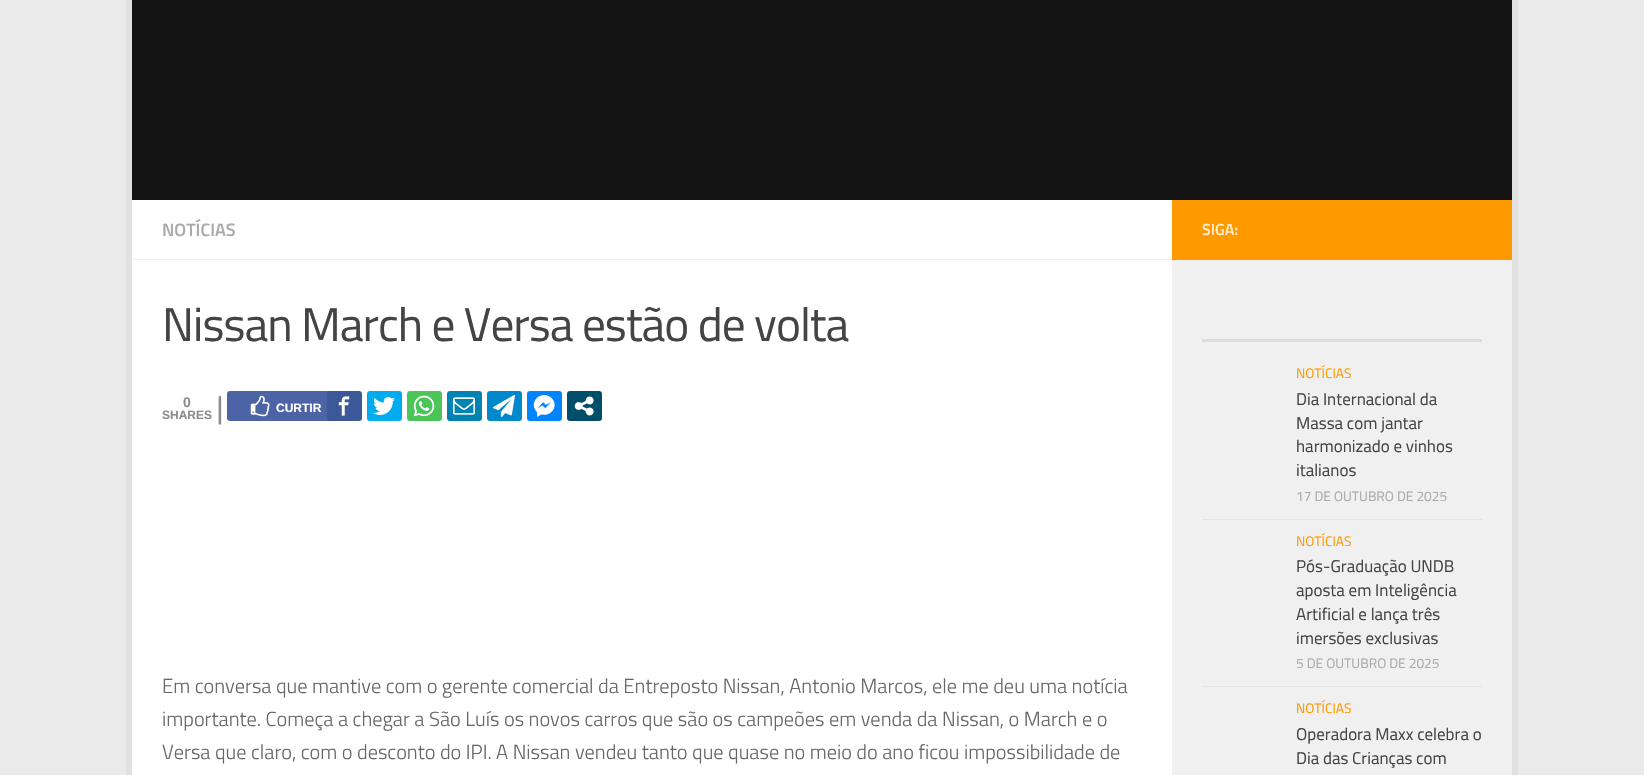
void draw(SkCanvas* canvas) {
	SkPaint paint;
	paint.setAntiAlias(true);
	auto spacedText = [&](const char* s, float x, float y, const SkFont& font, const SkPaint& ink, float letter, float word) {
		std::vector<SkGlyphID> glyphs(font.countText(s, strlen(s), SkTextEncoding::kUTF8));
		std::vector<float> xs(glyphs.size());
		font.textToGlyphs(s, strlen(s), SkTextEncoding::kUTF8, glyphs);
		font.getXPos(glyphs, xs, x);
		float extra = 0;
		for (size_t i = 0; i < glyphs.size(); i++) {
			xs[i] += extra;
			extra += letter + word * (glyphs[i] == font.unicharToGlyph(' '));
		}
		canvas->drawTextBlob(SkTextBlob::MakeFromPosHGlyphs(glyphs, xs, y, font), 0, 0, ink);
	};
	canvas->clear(0xffeaeaea);
	paint.setColor(0xffe1e1e1);
	canvas->drawRect(SkRect::MakeXYWH(126, 0, 6, 775), paint);
	canvas->drawRect(SkRect::MakeXYWH(1512, 0, 6, 775), paint);
	paint.setColor(0xff141414);
	canvas->drawRect(SkRect::MakeXYWH(132, 0, 1380, 200), paint);
	paint.setColor(0xffffffff);
	canvas->drawRect(SkRect::MakeXYWH(132, 200, 1040, 575), paint);
	paint.setColor(0xffeeeeee);
	canvas->drawRect(SkRect::MakeXYWH(132, 259, 1040, 1), paint);
	SkFont f1(fontMgr->matchFamilyStyle("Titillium", SkFontStyle(600, SkFontStyle::kNormal_Width, SkFontStyle::kUpright_Slant)), 18);
	f1.setSubpixel(true);
	paint.setColor(0xffaaaaaa);
	canvas->drawString("NOTÍCIAS", 162, 236, f1, paint);
	SkFont f2(fontMgr->matchFamilyStyle("Titillium", SkFontStyle::Normal()), 47.4);
	f2.setSubpixel(true);
	paint.setColor(0xff444444);
	spacedText("Nissan March e Versa estão de volta", 162, 341, f2, paint, -1, 0);
	SkFont f3(fontMgr->matchFamilyStyle("Liberation Sans", SkFontStyle::Bold()), 14);
	f3.setSubpixel(true);
	paint.setColor(0xff8c8c8c);
	canvas->drawString("0", 183, 407, f3, paint);
	SkFont f4(fontMgr->matchFamilyStyle("Liberation Sans", SkFontStyle::Normal()), 30);
	f4.setSubpixel(true);
	canvas->drawString("|", 216, 418, f4, paint);
	SkFont f5(fontMgr->matchFamilyStyle("Liberation Sans", SkFontStyle::Bold()), 12);
	f5.setSubpixel(true);
	canvas->drawString("SHARES", 162, 419, f5, paint);
	paint.setColor(0xff4c63a5);
	canvas->drawRoundRect(SkRect::MakeXYWH(227, 391, 120, 30), 3, 3, paint);
	canvas->drawImageRect(SkImages::DeferredFromEncodedData(SkData::MakeFromFileName("img1.png")), SkRect::MakeXYWH(250, 395, 20, 22), SkSamplingOptions());
	paint.setColor(0xffffffff);
	canvas->drawString("CURTIR", 276, 412, f5, paint);
	paint.setColor(0xff3b5998);
	canvas->drawRoundRect(SkRect::MakeXYWH(327, 391, 35, 30), 3, 3, paint);
	canvas->drawImageRect(SkImages::DeferredFromEncodedData(SkData::MakeFromFileName("img2.png")), SkRect::MakeXYWH(338, 396, 12, 20), SkSamplingOptions());
	paint.setColor(0xff00aced);
	canvas->drawRoundRect(SkRect::MakeXYWH(367, 391, 35, 30), 3, 3, paint);
	canvas->drawImageRect(SkImages::DeferredFromEncodedData(SkData::MakeFromFileName("img3.png")), SkRect::MakeXYWH(373, 397, 22, 18), SkSamplingOptions());
	paint.setColor(0xff4bc557);
	canvas->drawRoundRect(SkRect::MakeXYWH(407, 391, 35, 30), 3, 3, paint);
	canvas->drawImageRect(SkImages::DeferredFromEncodedData(SkData::MakeFromFileName("img4.png")), SkRect::MakeXYWH(413, 395, 22, 22), SkSamplingOptions());
	paint.setColor(0xff0082b3);
	canvas->drawRoundRect(SkRect::MakeXYWH(447, 391, 35, 30), 3, 3, paint);
	canvas->drawImageRect(SkImages::DeferredFromEncodedData(SkData::MakeFromFileName("img5.png")), SkRect::MakeXYWH(453, 397, 22, 18), SkSamplingOptions());
	paint.setColor(0xff0088cc);
	canvas->drawRoundRect(SkRect::MakeXYWH(487, 391, 35, 30), 3, 3, paint);
	canvas->drawImageRect(SkImages::DeferredFromEncodedData(SkData::MakeFromFileName("img6.png")), SkRect::MakeXYWH(493, 395, 22, 22), SkSamplingOptions());
	paint.setColor(0xff0084ff);
	canvas->drawRoundRect(SkRect::MakeXYWH(527, 391, 35, 30), 3, 3, paint);
	canvas->drawImageRect(SkImages::DeferredFromEncodedData(SkData::MakeFromFileName("img7.png")), SkRect::MakeXYWH(533, 395, 22, 22), SkSamplingOptions());
	paint.setColor(0xff014e6b);
	canvas->drawRoundRect(SkRect::MakeXYWH(567, 391, 35, 30), 3, 3, paint);
	canvas->drawImageRect(SkImages::DeferredFromEncodedData(SkData::MakeFromFileName("img8.png")), SkRect::MakeXYWH(574, 396, 20, 20), SkSamplingOptions());
	SkFont f6(fontMgr->matchFamilyStyle("Titillium", SkFontStyle(300, SkFontStyle::kNormal_Width, SkFontStyle::kUpright_Slant)), 20.35);
	f6.setSubpixel(true);
	paint.setColor(0xff666666);
	canvas->drawString("Em conversa que mantive com o gerente comercial da Entreposto Nissan, Antonio Marcos, ele me deu uma notícia", 162, 693, f6, paint);
	canvas->drawString("importante. Começa a chegar a São Luís os novos carros que são os campeões em venda da Nissan, o March e o", 162, 726, f6, paint);
	canvas->drawString("Versa que claro, com o desconto do IPI. A Nissan vendeu tanto que quase no meio do ano ficou impossibilidade de", 162, 759, f6, paint);
	paint.setColor(0xffff9900);
	canvas->drawRect(SkRect::MakeXYWH(1172, 200, 340, 60), paint);
	SkFont f7(fontMgr->matchFamilyStyle("Titillium", SkFontStyle(600, SkFontStyle::kNormal_Width, SkFontStyle::kUpright_Slant)), 16);
	f7.setSubpixel(true);
	paint.setColor(0xffffebcc);
	canvas->drawString("SIGA:", 1202, 235, f7, paint);
	paint.setColor(0xfff0f0f0);
	canvas->drawRect(SkRect::MakeXYWH(1172, 260, 340, 515), paint);
	paint.setColor(0xffdddddd);
	canvas->drawRect(SkRect::MakeXYWH(1202, 339, 280, 3), paint);
	paint.setColor(0xffe4e4e4);
	canvas->drawRect(SkRect::MakeXYWH(1202, 519, 280, 1), paint);
	SkFont f8(fontMgr->matchFamilyStyle("Titillium", SkFontStyle::Normal()), 13.75);
	f8.setSubpixel(true);
	paint.setColor(0xffff9900);
	canvas->drawString("NOTÍCIAS", 1296, 378, f8, paint);
	SkFont f9(fontMgr->matchFamilyStyle("Titillium", SkFontStyle::Normal()), 17);
	f9.setSubpixel(true);
	paint.setColor(0xff444444);
	canvas->drawString("Dia Internacional da", 1296, 405, f9, paint);
	canvas->drawString("Massa com jantar", 1296, 429, f9, paint);
	canvas->drawString("harmonizado e vinhos", 1296, 452, f9, paint);
	canvas->drawString("italianos", 1296, 476, f9, paint);
	paint.setColor(0xffaaaaaa);
	canvas->drawString("17 DE OUTUBRO DE 2025", 1296, 501, f8, paint);
	paint.setColor(0xffe4e4e4);
	canvas->drawRect(SkRect::MakeXYWH(1202, 686, 280, 1), paint);
	paint.setColor(0xffff9900);
	canvas->drawString("NOTÍCIAS", 1296, 546, f8, paint);
	paint.setColor(0xff444444);
	canvas->drawString("Pós-Graduação UNDB", 1296, 572, f9, paint);
	canvas->drawString("aposta em Inteligência", 1296, 596, f9, paint);
	canvas->drawString("Artificial e lança três", 1296, 620, f9, paint);
	canvas->drawString("imersões exclusivas", 1296, 644, f9, paint);
	paint.setColor(0xffaaaaaa);
	canvas->drawString("5 DE OUTUBRO DE 2025", 1296, 668, f8, paint);
	paint.setColor(0xffff9900);
	canvas->drawString("NOTÍCIAS", 1296, 713, f8, paint);
	paint.setColor(0xff444444);
	canvas->drawString("Operadora Maxx celebra o", 1296, 740, f9, paint);
	canvas->drawString("Dia das Crianças com", 1296, 764, f9, paint);
}
